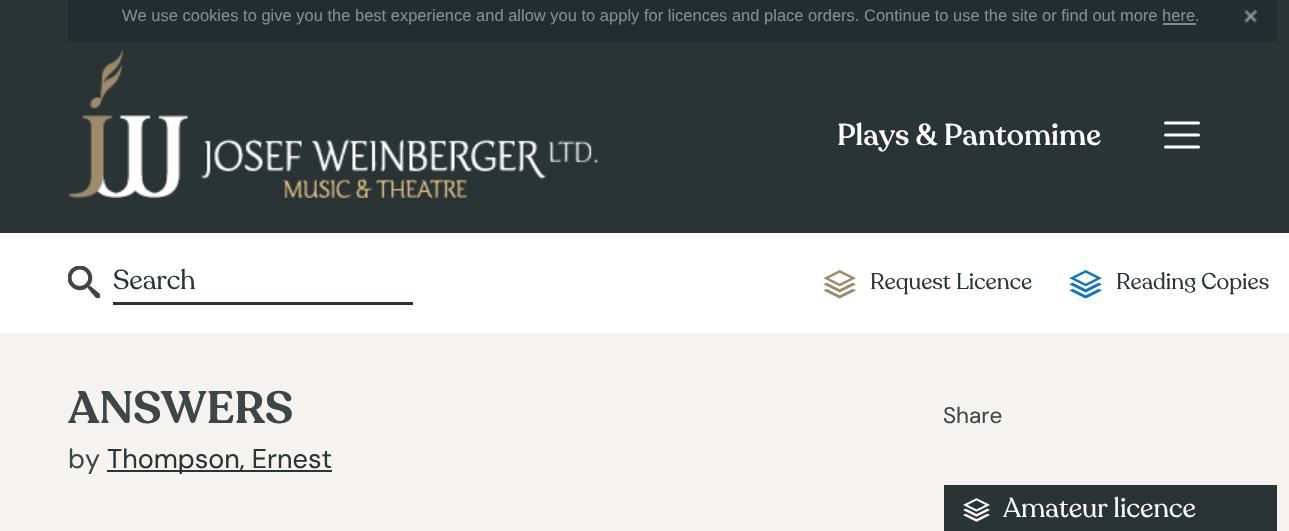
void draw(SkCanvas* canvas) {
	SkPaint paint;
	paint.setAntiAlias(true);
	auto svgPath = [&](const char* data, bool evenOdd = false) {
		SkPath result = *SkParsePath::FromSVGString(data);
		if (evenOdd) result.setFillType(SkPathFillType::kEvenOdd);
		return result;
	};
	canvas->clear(0xfff4f3ef);
	paint.setColor(0xff2a3435);
	canvas->drawRect(SkRect::MakeXYWH(0, 0, 1289, 233), paint);
	paint.setColor(0xff232d2f);
	canvas->drawRect(SkRect::MakeXYWH(68, 0, 1209, 42), paint);
	SkFont f1(fontMgr->matchFamilyStyle("Liberation Sans", SkFontStyle::Normal()), 16.5);
	f1.setSubpixel(true);
	paint.setColor(0xff868c8d);
	canvas->drawString("We use cookies to give you the best experience and allow you to apply for licences and place orders. Continue to use the site or find out more here.", 122, 21, f1, paint);
	canvas->drawImageRect(SkImages::DeferredFromEncodedData(SkData::MakeFromFileName("img1.png")), SkRect::MakeXYWH(1239, 6, 22, 21), SkSamplingOptions());
	canvas->drawRect(SkRect::MakeXYWH(1163, 23, 33, 2), paint);
	canvas->drawImageRect(SkImages::DeferredFromEncodedData(SkData::MakeFromFileName("img2.png")), SkRect::MakeXYWH(67, 51, 532, 147), SkSamplingOptions());
	SkFont f2(fontMgr->matchFamilyStyle("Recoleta", SkFontStyle(500, SkFontStyle::kNormal_Width, SkFontStyle::kUpright_Slant)), 30);
	f2.setSubpixel(true);
	paint.setColor(0xffffffff);
	canvas->drawString("Plays & Pantomime", 837, 145, f2, paint);
	paint.setStroke(true);
	paint.setStrokeWidth(3);
	paint.setStrokeCap(SkPaint::kRound_Cap);
	canvas->drawPath(svgPath("M1165.5 123H1198.5M1165.5 135H1198.5M1165.5 147H1198.5"), paint);
	paint.setStroke(false);
	canvas->drawRect(SkRect::MakeXYWH(0, 233, 1289, 100), paint);
	canvas->drawImageRect(SkImages::DeferredFromEncodedData(SkData::MakeFromFileName("img3.png")), SkRect::MakeXYWH(68, 266, 33, 33), SkSamplingOptions());
	paint.setColor(0xff2a3435);
	canvas->drawRect(SkRect::MakeXYWH(113, 302, 300, 3), paint);
	SkFont f3(fontMgr->matchFamilyStyle("Recoleta", SkFontStyle::Normal()), 27);
	f3.setSubpixel(true);
	canvas->drawString("Search", 113, 289, f3, paint);
	canvas->drawImageRect(SkImages::DeferredFromEncodedData(SkData::MakeFromFileName("img4.png")), SkRect::MakeXYWH(823, 270, 33, 29), SkSamplingOptions());
	SkFont f4(fontMgr->matchFamilyStyle("Recoleta", SkFontStyle::Normal()), 22.5);
	f4.setSubpixel(true);
	canvas->drawString("Request Licence", 870, 289, f4, paint);
	canvas->drawImageRect(SkImages::DeferredFromEncodedData(SkData::MakeFromFileName("img5.png")), SkRect::MakeXYWH(1069, 270, 33, 29), SkSamplingOptions());
	canvas->drawString("Reading Copies", 1116, 289, f4, paint);
	SkFont f5(fontMgr->matchFamilyStyle("Recoleta", SkFontStyle(600, SkFontStyle::kNormal_Width, SkFontStyle::kUpright_Slant)), 45);
	f5.setSubpixel(true);
	paint.setColor(0xff3e4747);
	canvas->drawString("ANSWERS", 68, 423, f5, paint);
	SkFont f6(fontMgr->matchFamilyStyle("DM Sans", SkFontStyle::Normal()), 27);
	f6.setSubpixel(true);
	canvas->drawString("by", 68, 468, f6, paint);
	paint.setColor(0xff283436);
	canvas->drawRect(SkRect::MakeXYWH(107, 470, 225, 2), paint);
	paint.setColor(0xff2a3435);
	canvas->drawString("Thompson, Ernest", 107, 468, f6, paint);
	SkFont f7(fontMgr->matchFamilyStyle("DM Sans", SkFontStyle::Normal()), 22.5);
	f7.setSubpixel(true);
	paint.setColor(0xff3e4747);
	canvas->drawString("Share", 943, 423, f7, paint);
	paint.setColor(0xff2a3435);
	canvas->drawRect(SkRect::MakeXYWH(944, 485, 333, 46), paint);
	canvas->drawImageRect(SkImages::DeferredFromEncodedData(SkData::MakeFromFileName("img6.png")), SkRect::MakeXYWH(963, 498, 27, 24), SkSamplingOptions());
	paint.setColor(0xffffffff);
	canvas->drawString("Amateur licence", 1003, 517, f3, paint);
}
